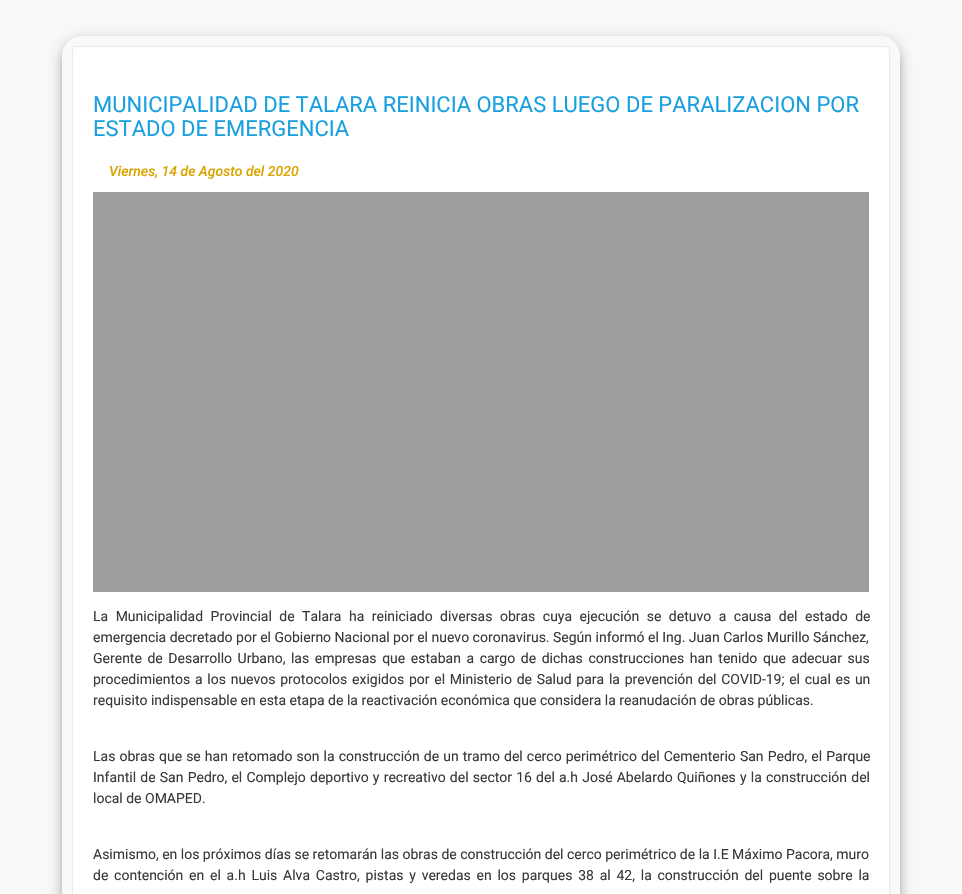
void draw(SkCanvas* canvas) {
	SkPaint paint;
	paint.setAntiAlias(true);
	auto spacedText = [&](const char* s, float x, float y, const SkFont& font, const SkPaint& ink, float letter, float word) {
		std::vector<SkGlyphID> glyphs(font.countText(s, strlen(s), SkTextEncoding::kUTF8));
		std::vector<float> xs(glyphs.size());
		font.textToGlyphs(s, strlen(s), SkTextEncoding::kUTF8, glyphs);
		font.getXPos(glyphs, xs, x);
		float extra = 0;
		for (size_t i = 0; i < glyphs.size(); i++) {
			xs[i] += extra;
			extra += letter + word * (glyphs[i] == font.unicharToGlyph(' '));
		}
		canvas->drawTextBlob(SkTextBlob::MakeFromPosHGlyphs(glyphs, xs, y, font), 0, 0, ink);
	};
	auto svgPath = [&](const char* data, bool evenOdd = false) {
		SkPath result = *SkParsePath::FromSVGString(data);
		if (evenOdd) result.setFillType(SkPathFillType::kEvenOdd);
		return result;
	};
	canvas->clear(0xfff9f9f9);
	paint.setColor(0x4d000000);
	paint.setMaskFilter(SkMaskFilter::MakeBlur(kNormal_SkBlurStyle, 2.5));
	canvas->drawRoundRect(SkRect::MakeXYWH(65, 44, 832, 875), 17, 17, paint);
	paint.setMaskFilter(nullptr);
	paint.setColor(0x1f000000);
	paint.setMaskFilter(SkMaskFilter::MakeBlur(kNormal_SkBlurStyle, 7));
	canvas->drawRoundRect(SkRect::MakeXYWH(60, 37, 842, 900), 22, 22, paint);
	paint.setMaskFilter(nullptr);
	paint.setColor(0x24000000);
	paint.setMaskFilter(SkMaskFilter::MakeBlur(kNormal_SkBlurStyle, 5));
	canvas->drawRoundRect(SkRect::MakeXYWH(61, 43, 840, 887), 21, 21, paint);
	paint.setMaskFilter(nullptr);
	paint.setColor(0xfff9f9f9);
	canvas->drawPath(svgPath("M82 36H880C891 36 900 45 900 56V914H62V56C62 45 71 36 82 36Z"), paint);
	paint.setColor(0xffffffff);
	canvas->drawRoundRect(SkRect::MakeXYWH(72.5, 46.5, 817, 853), 4.5, 4.5, paint);
	paint.setStroke(true);
	paint.setStrokeWidth(1);
	paint.setColor(0xffeaeaea);
	canvas->drawRoundRect(SkRect::MakeXYWH(72.5, 46.5, 817, 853), 4.5, 4.5, paint);
	SkFont f1(fontMgr->matchFamilyStyle("Roboto", SkFontStyle::Normal()), 22);
	f1.setSubpixel(true);
	paint.setStroke(false);
	paint.setColor(0xff1aa0df);
	canvas->drawString("MUNICIPALIDAD DE TALARA REINICIA OBRAS LUEGO DE PARALIZACION POR", 93, 112, f1, paint);
	canvas->drawString("ESTADO DE EMERGENCIA", 93, 136, f1, paint);
	SkFont f2(fontMgr->matchFamilyStyle("Roboto", SkFontStyle(500, SkFontStyle::kNormal_Width, SkFontStyle::kItalic_Slant)), 14);
	f2.setSubpixel(true);
	paint.setColor(0xffdaa400);
	canvas->drawString("Viernes, 14 de Agosto del 2020", 109, 176, f2, paint);
	paint.setColor(0xff9e9e9e);
	canvas->drawRect(SkRect::MakeXYWH(93, 192, 776, 400), paint);
	SkFont f3(fontMgr->matchFamilyStyle("Roboto", SkFontStyle::Normal()), 14);
	f3.setSubpixel(true);
	paint.setColor(0xff393939);
	spacedText("La Municipalidad Provincial de Talara ha reiniciado diversas obras cuya ejecución se detuvo a causa del estado de", 93, 621, f3, paint, 0, 4);
	canvas->drawString("emergencia decretado por el Gobierno Nacional por el nuevo coronavirus. Según informó el Ing. Juan Carlos Murillo Sánchez,", 93, 642, f3, paint);
	spacedText("Gerente de Desarrollo Urbano, las empresas que estaban a cargo de dichas construcciones han tenido que adecuar sus", 93, 663, f3, paint, 0, 2.1);
	spacedText("procedimientos a los nuevos protocolos exigidos por el Ministerio de Salud para la prevención del COVID-19; el cual es un", 93, 684, f3, paint, 0, 1.25);
	canvas->drawString("requisito indispensable en esta etapa de la reactivación económica que considera la reanudación de obras públicas.", 93, 705, f3, paint);
	spacedText("Las obras que se han retomado son la construcción de un tramo del cerco perimétrico del Cementerio San Pedro, el Parque", 93, 761, f3, paint, 0, 0.6);
	spacedText("Infantil de San Pedro, el Complejo deportivo y recreativo del sector 16 del a.h José Abelardo Quiñones y la construcción del", 93, 782, f3, paint, 0, 0.7);
	canvas->drawString("local de OMAPED.", 93, 803, f3, paint);
	canvas->drawString("Asimismo, en los próximos días se retomarán las obras de construcción del cerco perimétrico de la I.E Máximo Pacora, muro", 93, 859, f3, paint);
	spacedText("de contención en el a.h Luis Alva Castro, pistas y veredas en los parques 38 al 42, la construcción del puente sobre la", 93, 880, f3, paint, 0, 2.3);
}
